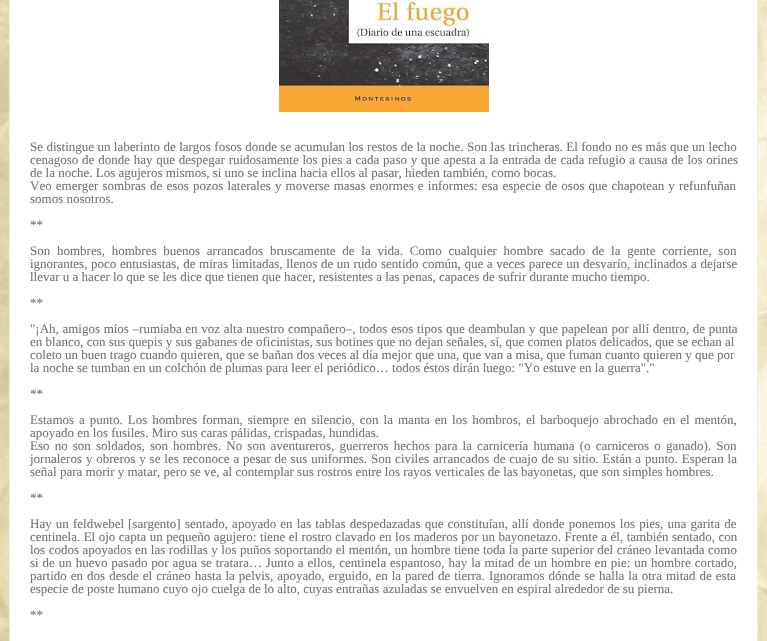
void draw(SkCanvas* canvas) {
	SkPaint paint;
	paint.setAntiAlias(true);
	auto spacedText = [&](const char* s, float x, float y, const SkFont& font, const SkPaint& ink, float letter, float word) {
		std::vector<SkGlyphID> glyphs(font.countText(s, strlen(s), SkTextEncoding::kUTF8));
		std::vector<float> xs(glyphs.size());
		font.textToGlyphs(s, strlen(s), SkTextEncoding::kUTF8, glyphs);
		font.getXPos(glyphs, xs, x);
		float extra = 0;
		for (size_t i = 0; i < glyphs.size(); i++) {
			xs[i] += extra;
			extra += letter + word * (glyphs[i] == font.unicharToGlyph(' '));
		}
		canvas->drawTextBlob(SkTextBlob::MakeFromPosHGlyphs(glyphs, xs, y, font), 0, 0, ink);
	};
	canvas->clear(0xffffffff);
	canvas->drawImageRect(SkImages::DeferredFromEncodedData(SkData::MakeFromFileName("img1.png")), SkRect::MakeXYWH(0, 0, 767, 641), SkSamplingOptions());
	paint.setStroke(true);
	paint.setStrokeWidth(1);
	paint.setColor(0xffeeeeee);
	canvas->drawRect(SkRect::MakeXYWH(9.5, -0.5, 748, 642), paint);
	paint.setStroke(false);
	paint.setColor(0xffffffff);
	canvas->drawRect(SkRect::MakeXYWH(10, 0, 747, 641), paint);
	canvas->drawImageRect(SkImages::DeferredFromEncodedData(SkData::MakeFromFileName("img2.png")), SkRect::MakeXYWH(279, 0, 210, 112), SkSamplingOptions());
	SkFont f1(fontMgr->matchFamilyStyle("Liberation Serif", SkFontStyle::Normal()), 13);
	f1.setSubpixel(true);
	paint.setColor(0xff747474);
	spacedText("Se distingue un laberinto de largos fosos donde se acumulan los restos de la noche. Son las trincheras. El fondo no es más que un lecho", 30, 151, f1, paint, 0, 0.15);
	spacedText("cenagoso de donde hay que despegar ruidosamente los pies a cada paso y que apesta a la entrada de cada refugio a causa de los orines", 30, 164, f1, paint, 0, 0.5);
	canvas->drawString("de la noche. Los agujeros mismos, si uno se inclina hacia ellos al pasar, hieden también, como bocas.", 30, 177, f1, paint);
	spacedText("Veo emerger sombras de esos pozos laterales y moverse masas enormes e informes: esa especie de osos que chapotean y refunfuñan", 30, 190, f1, paint, 0, 0.9);
	canvas->drawString("somos nosotros.", 30, 203, f1, paint);
	canvas->drawString("**", 30, 229, f1, paint);
	spacedText("Son hombres, hombres buenos arrancados bruscamente de la vida. Como cualquier hombre sacado de la gente corriente, son", 30, 255, f1, paint, 0, 3.5);
	spacedText("ignorantes, poco entusiastas, de miras limitadas, llenos de un rudo sentido común, que a veces parece un desvarío, inclinados a dejarse", 30, 268, f1, paint, 0, 0.4);
	canvas->drawString("llevar u a hacer lo que se les dice que tienen que hacer, resistentes a las penas, capaces de sufrir durante mucho tiempo.", 30, 281, f1, paint);
	canvas->drawString("**", 30, 307, f1, paint);
	spacedText("\"¡Ah, amigos míos –rumiaba en voz alta nuestro compañero–, todos esos tipos que deambulan y que papelean por allí dentro, de punta", 30, 333, f1, paint, 0, 0.4);
	canvas->drawString("en blanco, con sus quepis y sus gabanes de oficinistas, sus botines que no dejan señales, sí, que comen platos delicados, que se echan al", 30, 346, f1, paint);
	canvas->drawString("coleto un buen trago cuando quieren, que se bañan dos veces al día mejor que una, que van a misa, que fuman cuanto quieren y que por", 30, 359, f1, paint);
	canvas->drawString("la noche se tumban en un colchón de plumas para leer el periódico… todos éstos dirán luego: \"Yo estuve en la guerra\".\"", 30, 372, f1, paint);
	canvas->drawString("**", 30, 398, f1, paint);
	spacedText("Estamos a punto. Los hombres forman, siempre en silencio, con la manta en los hombros, el barboquejo abrochado en el mentón,", 30, 424, f1, paint, 0, 1.75);
	canvas->drawString("apoyado en los fusiles. Miro sus caras pálidas, crispadas, hundidas.", 30, 437, f1, paint);
	spacedText("Eso no son soldados, son hombres. No son aventureros, guerreros hechos para la carnicería humana (o carniceros o ganado). Son", 30, 450, f1, paint, 0, 1.9);
	spacedText("jornaleros y obreros y se les reconoce a pesar de sus uniformes. Son civiles arrancados de cuajo de su sitio. Están a punto. Esperan la", 30, 463, f1, paint, 0, 0.65);
	canvas->drawString("señal para morir y matar, pero se ve, al contemplar sus rostros entre los rayos verticales de las bayonetas, que son simples hombres.", 30, 476, f1, paint);
	canvas->drawString("**", 30, 502, f1, paint);
	spacedText("Hay un feldwebel", 30, 528, f1, paint, 0, 0.9);
	canvas->drawString("[sargento]", 128, 528, f1, paint);
	spacedText("sentado, apoyado en las tablas despedazadas que constituían, allí donde ponemos los pies, una garita de", 185, 528, f1, paint, 0, 0.9);
	spacedText("centinela. El ojo capta un pequeño agujero: tiene el rostro clavado en los maderos por un bayonetazo. Frente a él, también sentado, con", 30, 541, f1, paint, 0, 0.25);
	spacedText("los codos apoyados en las rodillas y los puños soportando el mentón, un hombre tiene toda la parte superior del cráneo levantada como", 30, 554, f1, paint, 0, 0.25);
	spacedText("si de un huevo pasado por agua se tratara… Junto a ellos, centinela espantoso, hay la mitad de un hombre en pie: un hombre cortado,", 30, 567, f1, paint, 0, 0.65);
	spacedText("partido en dos desde el cráneo hasta la pelvis, apoyado, erguido, en la pared de tierra. Ignoramos dónde se halla la otra mitad de esta", 30, 580, f1, paint, 0, 0.75);
	canvas->drawString("especie de poste humano cuyo ojo cuelga de lo alto, cuyas entrañas azuladas se envuelven en espiral alrededor de su pierna.", 30, 593, f1, paint);
	canvas->drawString("**", 30, 619, f1, paint);
}
